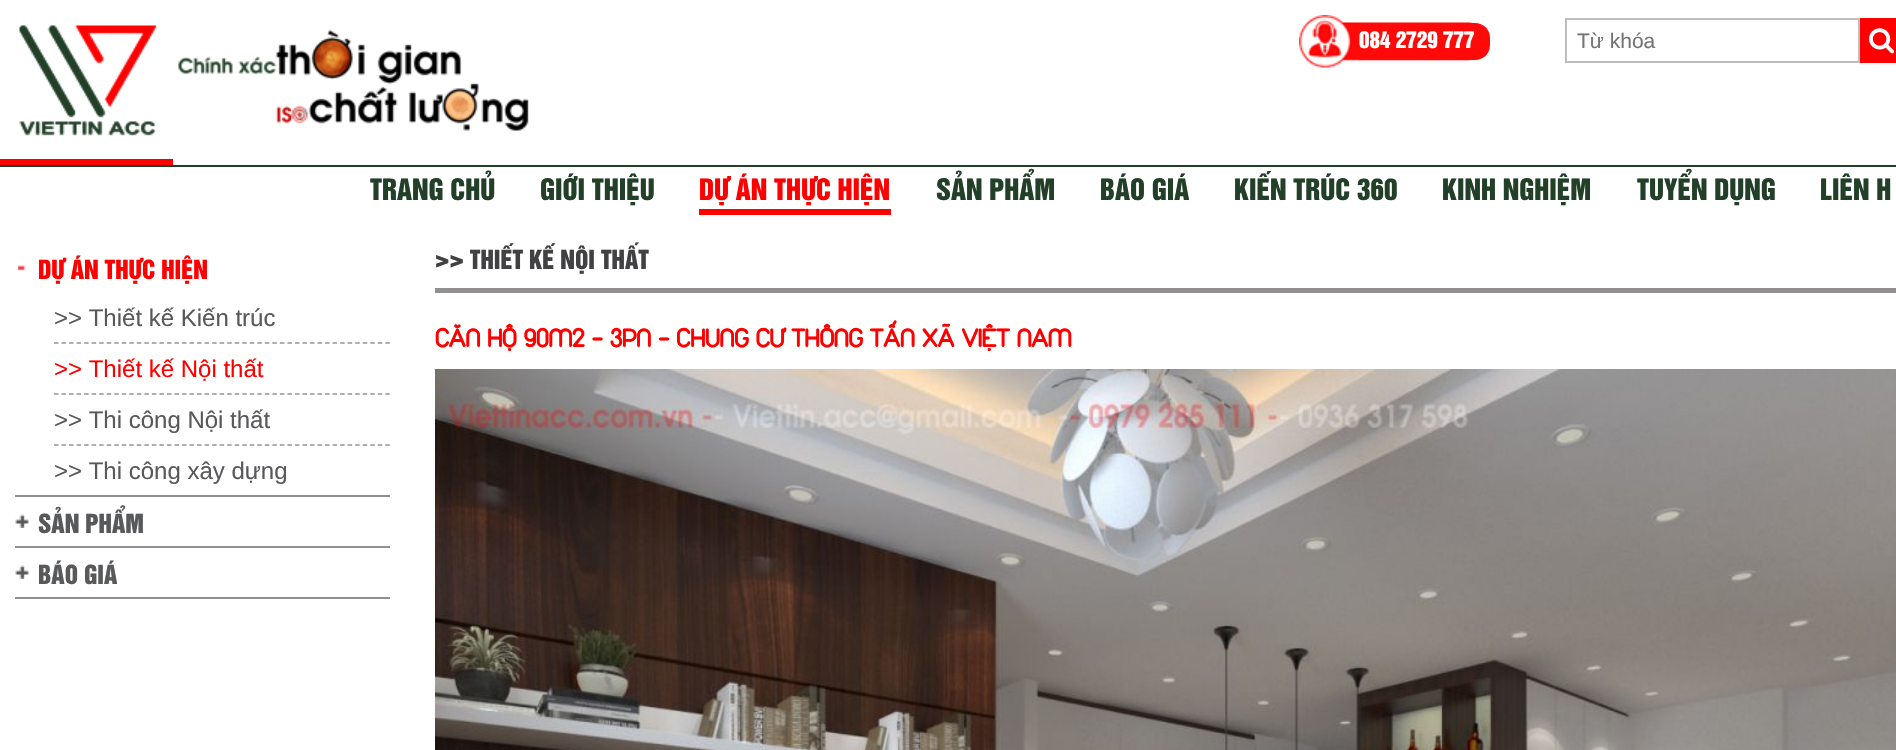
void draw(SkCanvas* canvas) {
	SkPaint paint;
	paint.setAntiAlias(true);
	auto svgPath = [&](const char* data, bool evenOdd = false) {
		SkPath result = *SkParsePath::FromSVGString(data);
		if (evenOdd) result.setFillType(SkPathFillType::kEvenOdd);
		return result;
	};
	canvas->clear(0xffffffff);
	paint.setColor(0xffff0000);
	canvas->drawRect(SkRect::MakeXYWH(0, 159, 173, 6), paint);
	paint.setColor(0xff223f28);
	canvas->drawRect(SkRect::MakeXYWH(0, 165, 1896, 2), paint);
	canvas->drawImageRect(SkImages::DeferredFromEncodedData(SkData::MakeFromFileName("img1.png")), SkRect::MakeXYWH(19, 25, 510, 111), SkSamplingOptions());
	canvas->drawImageRect(SkImages::DeferredFromEncodedData(SkData::MakeFromFileName("img2.png")), SkRect::MakeXYWH(1299, 15, 175, 53), SkSamplingOptions());
	paint.setColor(0xffff0909);
	canvas->drawPath(svgPath("M1359 23H1475C1483.5 23 1490 29.5 1490 38V45C1490 53.5 1483.5 60 1475 60H1359Z"), paint);
	SkFont f1(fontMgr->matchFamilyStyle("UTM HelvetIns", SkFontStyle::Normal()), 21);
	f1.setSubpixel(true);
	paint.setColor(0xffffffff);
	canvas->drawString("084 2729 777", 1359, 48, f1, paint);
	paint.setStroke(true);
	paint.setStrokeWidth(2);
	paint.setColor(0xffbcbec0);
	canvas->drawRect(SkRect::MakeXYWH(1566, 19, 293, 43), paint);
	SkFont f2(fontMgr->matchFamilyStyle("Liberation Sans", SkFontStyle::Normal()), 21);
	f2.setSubpixel(true);
	paint.setStroke(false);
	paint.setColor(0xff757575);
	canvas->drawString("Từ khóa", 1577, 48, f2, paint);
	paint.setColor(0xffff0000);
	canvas->drawRect(SkRect::MakeXYWH(1860, 18, 36, 45), paint);
	canvas->drawImageRect(SkImages::DeferredFromEncodedData(SkData::MakeFromFileName("img3.png")), SkRect::MakeXYWH(1869, 28, 26, 26), SkSamplingOptions());
	SkFont f3(fontMgr->matchFamilyStyle("UTM HelvetIns", SkFontStyle::Normal()), 27);
	f3.setSubpixel(true);
	paint.setColor(0xff223f28);
	canvas->drawString("TRANG CHỦ", 370, 200, f3, paint);
	canvas->drawString("GIỚI THIỆU", 540, 200, f3, paint);
	paint.setColor(0xffff0000);
	canvas->drawRect(SkRect::MakeXYWH(699, 209, 192, 6), paint);
	canvas->drawString("DỰ ÁN THỰC HIỆN", 699, 200, f3, paint);
	paint.setColor(0xff223f28);
	canvas->drawString("SẢN PHẨM", 936, 200, f3, paint);
	canvas->drawString("BÁO GIÁ", 1100, 200, f3, paint);
	canvas->drawString("KIẾN TRÚC 360", 1234, 200, f3, paint);
	canvas->drawString("KINH NGHIỆM", 1442, 200, f3, paint);
	canvas->drawString("TUYỂN DỤNG", 1637, 200, f3, paint);
	canvas->drawString("LIÊN H", 1820, 200, f3, paint);
	paint.setColor(0xff918f8f);
	canvas->drawRect(SkRect::MakeXYWH(15, 495, 375, 2), paint);
	canvas->drawImageRect(SkImages::DeferredFromEncodedData(SkData::MakeFromFileName("img4.png")), SkRect::MakeXYWH(17, 265, 9, 6), SkSamplingOptions());
	SkFont f4(fontMgr->matchFamilyStyle("UTM HelvetIns", SkFontStyle::Normal()), 24);
	f4.setSubpixel(true);
	paint.setColor(0xffff0000);
	canvas->drawString("DỰ ÁN THỰC HIỆN", 38, 279, f4, paint);
	paint.setStroke(true);
	paint.setStrokeWidth(1.5);
	paint.setColor(0xff939598);
	paint.setPathEffect(SkDashPathEffect::Make({{4.5f, 3.03f}}, 0));
	canvas->drawPath(svgPath("M54 343H390"), paint);
	paint.setPathEffect(nullptr);
	SkFont f5(fontMgr->matchFamilyStyle("Liberation Sans", SkFontStyle::Normal()), 24);
	f5.setSubpixel(true);
	paint.setStroke(false);
	paint.setColor(0xff58595b);
	canvas->drawString(">> Thiết kế Kiến trúc", 54, 326, f5, paint);
	paint.setStroke(true);
	paint.setColor(0xff939598);
	paint.setPathEffect(SkDashPathEffect::Make({{4.5f, 3.03f}}, 0));
	canvas->drawPath(svgPath("M54 394H390"), paint);
	paint.setPathEffect(nullptr);
	paint.setStroke(false);
	paint.setColor(0xffff0000);
	canvas->drawString(">> Thiết kế Nội thất", 54, 377, f5, paint);
	paint.setStroke(true);
	paint.setColor(0xff939598);
	paint.setPathEffect(SkDashPathEffect::Make({{4.5f, 3.03f}}, 0));
	canvas->drawPath(svgPath("M54 445H390"), paint);
	paint.setPathEffect(nullptr);
	paint.setStroke(false);
	paint.setColor(0xff58595b);
	canvas->drawString(">> Thi công Nội thất", 54, 428, f5, paint);
	canvas->drawString(">> Thi công xây dựng", 54, 479, f5, paint);
	paint.setColor(0xff918f8f);
	canvas->drawRect(SkRect::MakeXYWH(15, 546, 375, 2), paint);
	canvas->drawImageRect(SkImages::DeferredFromEncodedData(SkData::MakeFromFileName("img5.png")), SkRect::MakeXYWH(15, 514, 14, 14), SkSamplingOptions());
	paint.setColor(0xff58595b);
	canvas->drawString("SẢN PHẨM", 38, 533, f4, paint);
	paint.setColor(0xff918f8f);
	canvas->drawRect(SkRect::MakeXYWH(15, 597, 375, 2), paint);
	canvas->drawImageRect(SkImages::DeferredFromEncodedData(SkData::MakeFromFileName("img5.png")), SkRect::MakeXYWH(15, 565, 14, 14), SkSamplingOptions());
	paint.setColor(0xff58595b);
	canvas->drawString("BÁO GIÁ", 38, 584, f4, paint);
	paint.setColor(0xff918f8f);
	canvas->drawRect(SkRect::MakeXYWH(435, 288, 1461, 5), paint);
	paint.setColor(0xff414042);
	canvas->drawString(">> THIẾT KẾ NỘI THẤT", 435, 269, f4, paint);
	SkFont f6(fontMgr->matchFamilyStyle("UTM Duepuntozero", SkFontStyle::Bold()), 27);
	f6.setSubpixel(true);
	paint.setColor(0xffff0000);
	canvas->drawString("CĂN HỘ 90M2 - 3PN - CHUNG CƯ THÔNG TẤN XÃ VIỆT NAM", 435, 347, f6, paint);
	canvas->drawImageRect(SkImages::DeferredFromEncodedData(SkData::MakeFromFileName("img6.png")), SkRect::MakeXYWH(435, 369, 1461, 381), SkSamplingOptions());
}
